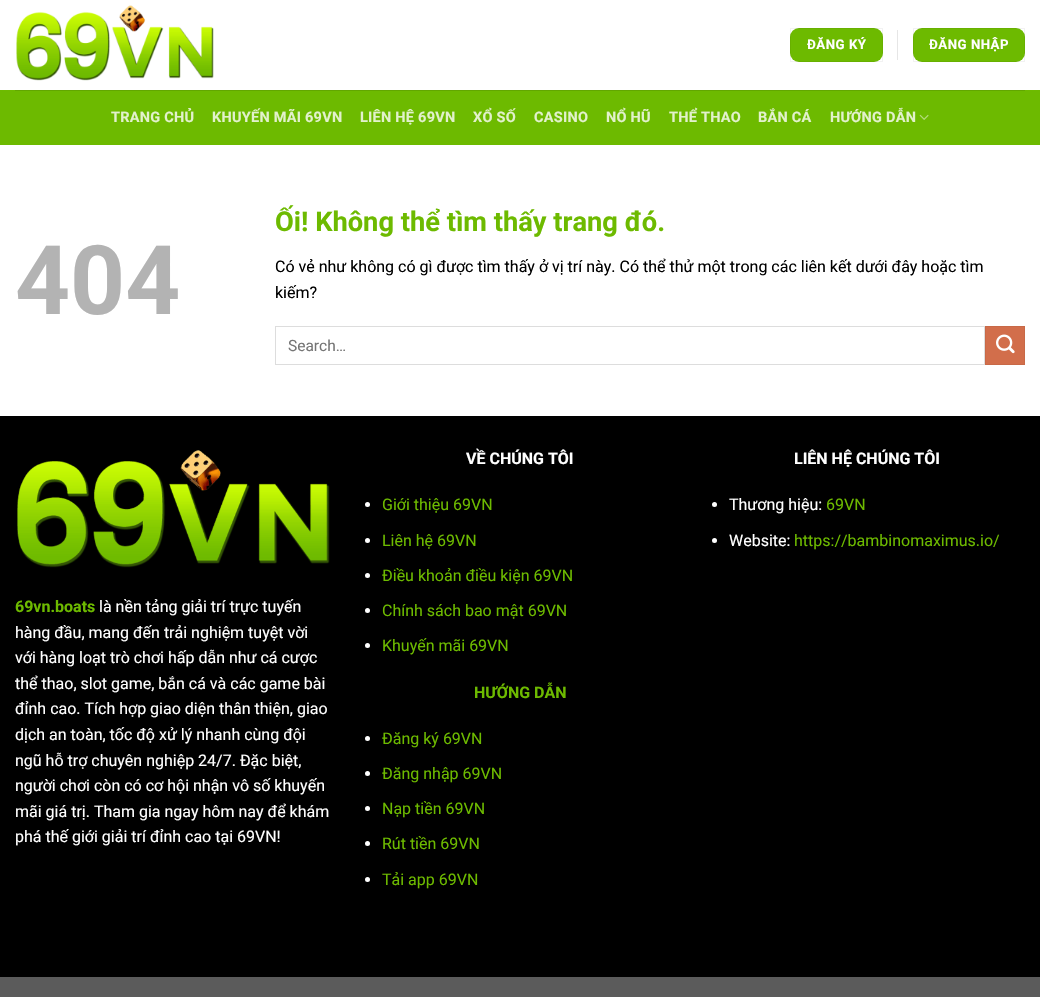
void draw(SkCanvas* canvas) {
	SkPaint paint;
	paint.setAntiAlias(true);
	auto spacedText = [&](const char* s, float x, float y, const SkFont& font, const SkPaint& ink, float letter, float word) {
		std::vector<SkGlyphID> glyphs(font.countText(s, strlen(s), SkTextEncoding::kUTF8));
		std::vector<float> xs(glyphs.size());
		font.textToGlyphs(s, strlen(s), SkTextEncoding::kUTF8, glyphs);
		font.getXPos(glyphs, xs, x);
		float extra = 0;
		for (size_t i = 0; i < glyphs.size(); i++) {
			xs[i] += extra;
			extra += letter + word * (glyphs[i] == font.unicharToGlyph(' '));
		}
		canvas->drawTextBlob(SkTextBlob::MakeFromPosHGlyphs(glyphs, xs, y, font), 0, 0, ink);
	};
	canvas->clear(0xffffffff);
	canvas->drawImageRect(SkImages::DeferredFromEncodedData(SkData::MakeFromFileName("img1.png")), SkRect::MakeXYWH(16, 5, 198, 76), SkSamplingOptions());
	paint.setColor(0xff6dba00);
	canvas->drawRoundRect(SkRect::MakeXYWH(790, 28, 93, 34), 9, 9, paint);
	paint.setStroke(true);
	paint.setStrokeWidth(1);
	paint.setColor(0x0d000000);
	canvas->drawRect(SkRect::MakeXYWH(790.5, 28.5, 92, 33), paint);
	SkFont f1(fontMgr->matchFamilyStyle("Roboto", SkFontStyle::Bold()), 13.25);
	f1.setSubpixel(true);
	paint.setStroke(false);
	paint.setColor(0xffffffff);
	spacedText("ĐĂNG KÝ", 807, 49, f1, paint, 0.5, 0);
	paint.setColor(0xffe6e6e6);
	canvas->drawRect(SkRect::MakeXYWH(897, 30, 1, 30), paint);
	paint.setColor(0xff6dba00);
	canvas->drawRoundRect(SkRect::MakeXYWH(913, 28, 112, 34), 9, 9, paint);
	paint.setStroke(true);
	paint.setColor(0x0d000000);
	canvas->drawRect(SkRect::MakeXYWH(913.5, 28.5, 111, 33), paint);
	paint.setStroke(false);
	paint.setColor(0xffffffff);
	spacedText("ĐĂNG NHẬP", 929, 49, f1, paint, 0.5, 0);
	paint.setColor(0xff6dba00);
	canvas->drawRect(SkRect::MakeXYWH(0, 90, 1040, 55), paint);
	paint.setColor(0xff62a700);
	canvas->drawRect(SkRect::MakeXYWH(15, 90, 1010, 1), paint);
	SkFont f2(fontMgr->matchFamilyStyle("Roboto", SkFontStyle::Bold()), 14.5);
	f2.setSubpixel(true);
	paint.setColor(0xffe2f1cc);
	spacedText("TRANG CHỦ", 111, 122, f2, paint, 0.25, 0);
	spacedText("KHUYẾN MÃI 69VN", 212, 122, f2, paint, 0.25, 0);
	spacedText("LIÊN HỆ 69VN", 360, 122, f2, paint, 0.25, 0);
	spacedText("XỔ SỐ", 473, 122, f2, paint, 0.25, 0);
	spacedText("CASINO", 534, 122, f2, paint, 0.25, 0);
	spacedText("NỔ HŨ", 606, 122, f2, paint, 0.25, 0);
	spacedText("THỂ THAO", 669, 122, f2, paint, 0.25, 0);
	spacedText("BẮN CÁ", 758, 122, f2, paint, 0.25, 0);
	spacedText("HƯỚNG DẪN", 830, 122, f2, paint, 0.25, 0);
	canvas->drawImageRect(SkImages::DeferredFromEncodedData(SkData::MakeFromFileName("img2.png")), SkRect::MakeXYWH(919, 114, 10, 6), SkSamplingOptions());
	SkFont f3(fontMgr->matchFamilyStyle("Roboto", SkFontStyle::Bold()), 96);
	f3.setSubpixel(true);
	paint.setColor(0xffb3b3b3);
	canvas->drawString("404", 15, 314, f3, paint);
	SkFont f4(fontMgr->matchFamilyStyle("Roboto", SkFontStyle::Bold()), 27.25);
	f4.setSubpixel(true);
	paint.setColor(0xff6dba00);
	canvas->drawString("Ối! Không thể tìm thấy trang đó.", 275, 231, f4, paint);
	SkFont f5(fontMgr->matchFamilyStyle("Roboto", SkFontStyle::Normal()), 16);
	f5.setSubpixel(true);
	paint.setColor(0xff000000);
	canvas->drawString("Có vẻ như không có gì được tìm thấy ở vị trí này. Có thể thử một trong các liên kết dưới đây hoặc tìm", 275, 272, f5, paint);
	canvas->drawString("kiếm?", 275, 298, f5, paint);
	paint.setStroke(true);
	paint.setColor(0xffdddddd);
	canvas->drawRect(SkRect::MakeXYWH(275.5, 326.5, 709, 38), paint);
	SkFont f6(fontMgr->matchFamilyStyle("Roboto", SkFontStyle::Normal()), 15.5);
	f6.setSubpixel(true);
	paint.setStroke(false);
	paint.setColor(0xff757575);
	canvas->drawString("Search…", 288, 351, f6, paint);
	paint.setColor(0xffd26e4b);
	canvas->drawRect(SkRect::MakeXYWH(985.5, 326.5, 39, 38), paint);
	paint.setStroke(true);
	paint.setColor(0xffc86947);
	canvas->drawRect(SkRect::MakeXYWH(985.5, 326.5, 39, 38), paint);
	canvas->drawImageRect(SkImages::DeferredFromEncodedData(SkData::MakeFromFileName("img3.png")), SkRect::MakeXYWH(996, 334, 19, 20), SkSamplingOptions());
	paint.setStroke(false);
	paint.setColor(0xff000000);
	canvas->drawRect(SkRect::MakeXYWH(0, 416, 1040, 561), paint);
	SkFont f7(fontMgr->matchFamilyStyle("Roboto", SkFontStyle::Bold()), 16);
	f7.setSubpixel(true);
	paint.setColor(0xffffffff);
	canvas->drawString("VỀ CHÚNG TÔI", 466, 464, f7, paint);
	canvas->drawCircle(367.5, 504.5, 2.5, paint);
	paint.setColor(0xff6dba00);
	canvas->drawString("Giới thiệu 69VN", 382, 510, f5, paint);
	paint.setColor(0xffffffff);
	canvas->drawCircle(367.5, 540.5, 2.5, paint);
	paint.setColor(0xff6dba00);
	canvas->drawString("Liên hệ 69VN", 382, 546, f5, paint);
	paint.setColor(0xffffffff);
	canvas->drawCircle(367.5, 575.5, 2.5, paint);
	paint.setColor(0xff6dba00);
	canvas->drawString("Điều khoản điều kiện 69VN", 382, 581, f5, paint);
	paint.setColor(0xffffffff);
	canvas->drawCircle(367.5, 610.5, 2.5, paint);
	paint.setColor(0xff6dba00);
	canvas->drawString("Chính sách bao mật 69VN", 382, 616, f5, paint);
	paint.setColor(0xffffffff);
	canvas->drawCircle(367.5, 645.5, 2.5, paint);
	paint.setColor(0xff6dba00);
	canvas->drawString("Khuyến mãi 69VN", 382, 651, f5, paint);
	canvas->drawString("HƯỚNG DẪN", 474, 698, f7, paint);
	paint.setColor(0xffffffff);
	canvas->drawCircle(367.5, 738.5, 2.5, paint);
	paint.setColor(0xff6dba00);
	canvas->drawString("Đăng ký 69VN", 382, 744, f5, paint);
	paint.setColor(0xffffffff);
	canvas->drawCircle(367.5, 773.5, 2.5, paint);
	paint.setColor(0xff6dba00);
	canvas->drawString("Đăng nhập 69VN", 382, 779, f5, paint);
	paint.setColor(0xffffffff);
	canvas->drawCircle(367.5, 808.5, 2.5, paint);
	paint.setColor(0xff6dba00);
	canvas->drawString("Nạp tiền 69VN", 382, 814, f5, paint);
	paint.setColor(0xffffffff);
	canvas->drawCircle(367.5, 843.5, 2.5, paint);
	paint.setColor(0xff6dba00);
	canvas->drawString("Rút tiền 69VN", 382, 849, f5, paint);
	paint.setColor(0xffffffff);
	canvas->drawCircle(367.5, 879.5, 2.5, paint);
	paint.setColor(0xff6dba00);
	canvas->drawString("Tải app 69VN", 382, 885, f5, paint);
	paint.setColor(0xffffffff);
	canvas->drawString("LIÊN HỆ CHÚNG TÔI", 794, 464, f7, paint);
	canvas->drawCircle(714.5, 504.5, 2.5, paint);
	canvas->drawString("Thương hiệu:", 729, 510, f5, paint);
	paint.setColor(0xff6dba00);
	canvas->drawString("69VN", 826, 510, f5, paint);
	paint.setColor(0xffffffff);
	canvas->drawCircle(714.5, 540.5, 2.5, paint);
	canvas->drawString("Website:", 729, 546, f5, paint);
	paint.setColor(0xff6dba00);
	canvas->drawString("https://bambinomaximus.io/", 794, 546, f5, paint);
	canvas->drawImageRect(SkImages::DeferredFromEncodedData(SkData::MakeFromFileName("img4.png")), SkRect::MakeXYWH(17, 450, 313, 118), SkSamplingOptions());
	canvas->drawString("69vn.boats", 15, 612, f7, paint);
	paint.setColor(0xffffffff);
	canvas->drawString("là nền tảng giải trí trực tuyến", 99, 612, f5, paint);
	canvas->drawString("hàng đầu, mang đến trải nghiệm tuyệt vời", 15, 638, f5, paint);
	canvas->drawString("với hàng loạt trò chơi hấp dẫn như cá cược", 15, 663, f5, paint);
	canvas->drawString("thể thao, slot game, bắn cá và các game bài", 15, 689, f5, paint);
	canvas->drawString("đỉnh cao. Tích hợp giao diện thân thiện, giao", 15, 714, f5, paint);
	canvas->drawString("dịch an toàn, tốc độ xử lý nhanh cùng đội", 15, 740, f5, paint);
	canvas->drawString("ngũ hỗ trợ chuyên nghiệp 24/7. Đặc biệt,", 15, 766, f5, paint);
	canvas->drawString("người chơi còn có cơ hội nhận vô số khuyến", 15, 791, f5, paint);
	canvas->drawString("mãi giá trị. Tham gia ngay hôm nay để khám", 15, 817, f5, paint);
	canvas->drawString("phá thế giới giải trí đỉnh cao tại 69VN!", 15, 842, f5, paint);
	paint.setColor(0xff5b5b5b);
	canvas->drawRect(SkRect::MakeXYWH(0, 977, 1040, 20), paint);
}
